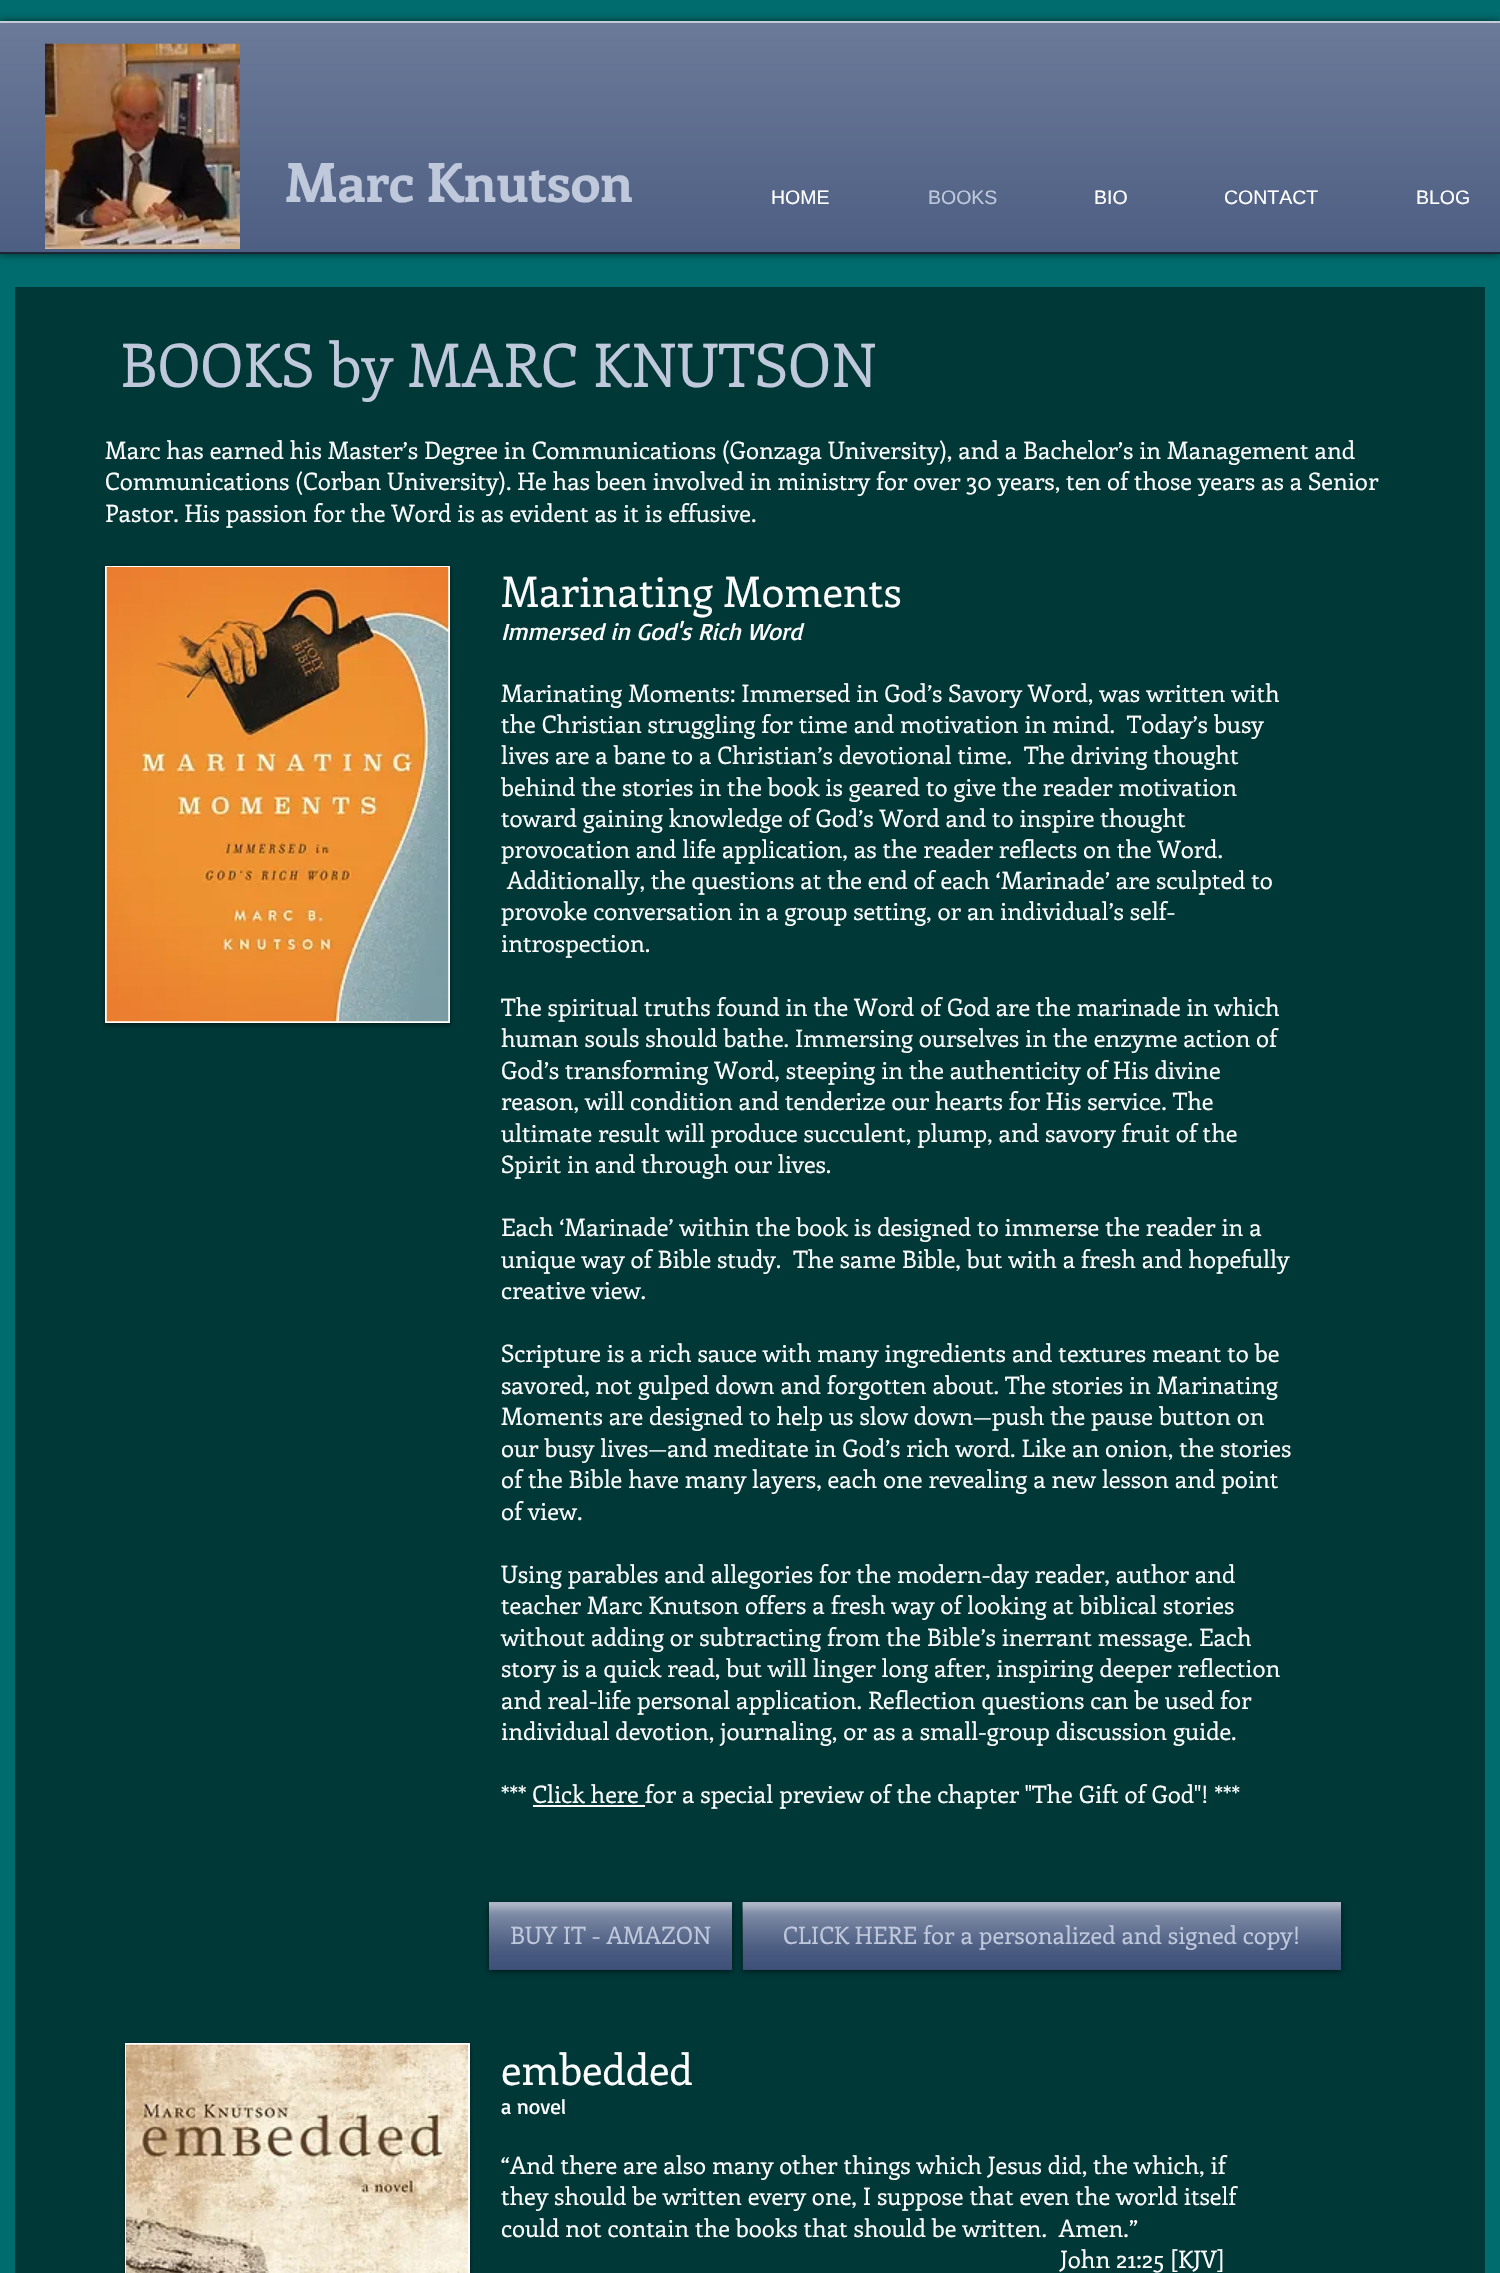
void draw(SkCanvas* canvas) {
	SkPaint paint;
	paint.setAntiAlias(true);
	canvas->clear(0xff006c6d);
	paint.setColor(0x99000000);
	paint.setMaskFilter(SkMaskFilter::MakeBlur(kNormal_SkBlurStyle, 4));
	canvas->drawRect(SkRect::MakeXYWH(0, 21, 1500, 233), paint);
	paint.setMaskFilter(nullptr);
	paint.setColor(0xff394c75);
	canvas->drawRect(SkRect::MakeXYWH(0, 23, 1500, 231), paint);
	canvas->drawImageRect(SkImages::DeferredFromEncodedData(SkData::MakeFromFileName("img1.png")), SkRect::MakeXYWH(0, 23, 1500, 231), SkSamplingOptions());
	paint.setColor(0x99000000);
	canvas->drawRect(SkRect::MakeXYWH(0, 252, 1500, 2), paint);
	paint.setColor(0xffc4cad6);
	canvas->drawRect(SkRect::MakeXYWH(0, 21, 1500, 2), paint);
	canvas->drawImageRect(SkImages::DeferredFromEncodedData(SkData::MakeFromFileName("img2.png")), SkRect::MakeXYWH(45, 43, 195, 206), SkSamplingOptions());
	SkFont f1(fontMgr->matchFamilyStyle("Enriqueta", SkFontStyle::Bold()), 54);
	f1.setSubpixel(true);
	paint.setColor(0xffc0c9dc);
	canvas->drawString("Marc Knutson", 285, 202, f1, paint);
	SkFont f2(fontMgr->matchFamilyStyle("Liberation Sans", SkFontStyle::Normal()), 19.5);
	f2.setSubpixel(true);
	paint.setColor(0xffffffff);
	canvas->drawString("HOME", 771, 204, f2, paint);
	paint.setColor(0xffc0c9dc);
	canvas->drawString("BOOKS", 928, 204, f2, paint);
	paint.setColor(0xffffffff);
	canvas->drawString("BIO", 1094, 204, f2, paint);
	canvas->drawString("CONTACT", 1224, 204, f2, paint);
	canvas->drawString("BLOG", 1416, 204, f2, paint);
	paint.setColor(0xff003737);
	canvas->drawRect(SkRect::MakeXYWH(15, 287, 1470, 1986), paint);
	SkFont f3(fontMgr->matchFamilyStyle("Enriqueta", SkFontStyle::Normal()), 60);
	f3.setSubpixel(true);
	paint.setColor(0xffc0c9dc);
	canvas->drawString("BOOKS by MARC KNUTSON", 120, 387, f3, paint);
	SkFont f4(fontMgr->matchFamilyStyle("Enriqueta", SkFontStyle::Normal()), 24);
	f4.setSubpixel(true);
	paint.setColor(0xffffffff);
	canvas->drawString("Marc has earned his Master’s Degree in Communications (Gonzaga University), and a Bachelor’s in Management and", 105, 459, f4, paint);
	canvas->drawString("Communications (Corban University). He has been involved in ministry for over 30 years, ten of those years as a Senior", 105, 490, f4, paint);
	canvas->drawString("Pastor. His passion for the Word is as evident as it is effusive.", 105, 522, f4, paint);
	paint.setColor(0x80000000);
	paint.setMaskFilter(SkMaskFilter::MakeBlur(kNormal_SkBlurStyle, 2));
	canvas->drawRect(SkRect::MakeXYWH(105, 567, 345, 458), paint);
	paint.setMaskFilter(nullptr);
	paint.setColor(0xffffffff);
	canvas->drawRect(SkRect::MakeXYWH(105, 566, 345, 457), paint);
	canvas->drawImageRect(SkImages::DeferredFromEncodedData(SkData::MakeFromFileName("img3.png")), SkRect::MakeXYWH(106, 567, 343, 455), SkSamplingOptions());
	SkFont f5(fontMgr->matchFamilyStyle("Enriqueta", SkFontStyle::Normal()), 42);
	f5.setSubpixel(true);
	canvas->drawString("Marinating Moments", 501, 607, f5, paint);
	SkFont f6(fontMgr->matchFamilyStyle("Basic", SkFontStyle::Italic()), 24);
	f6.setSubpixel(true);
	canvas->drawString("Immersed in God's Rich Word", 501, 640, f6, paint);
	canvas->drawString("Marinating Moments: Immersed in God’s Savory Word, was written with", 501, 702, f4, paint);
	canvas->drawString("the Christian struggling for time and motivation in mind.  Today’s busy", 501, 733, f4, paint);
	canvas->drawString("lives are a bane to a Christian’s devotional time.  The driving thought", 501, 764, f4, paint);
	canvas->drawString("behind the stories in the book is geared to give the reader motivation", 501, 796, f4, paint);
	canvas->drawString("toward gaining knowledge of God’s Word and to inspire thought", 501, 827, f4, paint);
	canvas->drawString("provocation and life application, as the reader reflects on the Word.", 501, 858, f4, paint);
	canvas->drawString("Additionally, the questions at the end of each ‘Marinade’ are sculpted to", 507, 889, f4, paint);
	canvas->drawString("provoke conversation in a group setting, or an individual’s self-", 501, 920, f4, paint);
	canvas->drawString("introspection.", 501, 952, f4, paint);
	canvas->drawString("The spiritual truths found in the Word of God are the marinade in which", 501, 1016, f4, paint);
	canvas->drawString("human souls should bathe. Immersing ourselves in the enzyme action of", 501, 1047, f4, paint);
	canvas->drawString("God’s transforming Word, steeping in the authenticity of His divine", 501, 1079, f4, paint);
	canvas->drawString("reason, will condition and tenderize our hearts for His service. The", 501, 1110, f4, paint);
	canvas->drawString("ultimate result will produce succulent, plump, and savory fruit of the", 501, 1142, f4, paint);
	canvas->drawString("Spirit in and through our lives.", 501, 1173, f4, paint);
	canvas->drawString("Each ‘Marinade’ within the book is designed to immerse the reader in a", 501, 1236, f4, paint);
	canvas->drawString("unique way of Bible study.  The same Bible, but with a fresh and hopefully", 501, 1268, f4, paint);
	canvas->drawString("creative view.", 501, 1299, f4, paint);
	canvas->drawString("Scripture is a rich sauce with many ingredients and textures meant to be", 501, 1362, f4, paint);
	canvas->drawString("savored, not gulped down and forgotten about. The stories in Marinating", 501, 1394, f4, paint);
	canvas->drawString("Moments are designed to help us slow down—push the pause button on", 501, 1425, f4, paint);
	canvas->drawString("our busy lives—and meditate in God’s rich word. Like an onion, the stories", 501, 1457, f4, paint);
	canvas->drawString("of the Bible have many layers, each one revealing a new lesson and point", 501, 1488, f4, paint);
	canvas->drawString("of view.", 501, 1520, f4, paint);
	canvas->drawString("Using parables and allegories for the modern-day reader, author and", 501, 1583, f4, paint);
	canvas->drawString("teacher Marc Knutson offers a fresh way of looking at biblical stories", 501, 1614, f4, paint);
	canvas->drawString("without adding or subtracting from the Bible’s inerrant message. Each", 501, 1646, f4, paint);
	canvas->drawString("story is a quick read, but will linger long after, inspiring deeper reflection", 501, 1677, f4, paint);
	canvas->drawString("and real-life personal application. Reflection questions can be used for", 501, 1709, f4, paint);
	canvas->drawString("individual devotion, journaling, or as a small-group discussion guide.", 501, 1740, f4, paint);
	canvas->drawString("*** Click here for a special preview of the chapter \"The Gift of God\"! ***", 501, 1803, f4, paint);
	canvas->drawRect(SkRect::MakeXYWH(533, 1805, 112, 2), paint);
	paint.setColor(0x99000000);
	paint.setMaskFilter(SkMaskFilter::MakeBlur(kNormal_SkBlurStyle, 3));
	canvas->drawRect(SkRect::MakeXYWH(489, 1904, 243, 67), paint);
	paint.setMaskFilter(nullptr);
	paint.setColor(0xff394c75);
	canvas->drawRect(SkRect::MakeXYWH(489, 1902, 243, 68), paint);
	canvas->drawImageRect(SkImages::DeferredFromEncodedData(SkData::MakeFromFileName("img4.png")), SkRect::MakeXYWH(489, 1902, 243, 67), SkSamplingOptions());
	paint.setColor(0xffc0c9dc);
	canvas->drawString("BUY IT - AMAZON", 510, 1944, f4, paint);
	paint.setColor(0x99000000);
	paint.setMaskFilter(SkMaskFilter::MakeBlur(kNormal_SkBlurStyle, 3));
	canvas->drawRect(SkRect::MakeXYWH(743, 1904, 598, 67), paint);
	paint.setMaskFilter(nullptr);
	paint.setColor(0xff394c75);
	canvas->drawRect(SkRect::MakeXYWH(743, 1902, 598, 68), paint);
	canvas->drawImageRect(SkImages::DeferredFromEncodedData(SkData::MakeFromFileName("img5.png")), SkRect::MakeXYWH(742, 1902, 599, 67), SkSamplingOptions());
	paint.setColor(0xffc0c9dc);
	canvas->drawString("CLICK HERE for a personalized and signed copy!", 783, 1944, f4, paint);
	paint.setColor(0x80000000);
	paint.setMaskFilter(SkMaskFilter::MakeBlur(kNormal_SkBlurStyle, 2));
	canvas->drawRect(SkRect::MakeXYWH(125, 2045, 345, 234), paint);
	paint.setMaskFilter(nullptr);
	paint.setColor(0xffffffff);
	canvas->drawRect(SkRect::MakeXYWH(125, 2043, 345, 230), paint);
	canvas->drawImageRect(SkImages::DeferredFromEncodedData(SkData::MakeFromFileName("img6.png")), SkRect::MakeXYWH(126, 2044, 342, 229), SkSamplingOptions());
	canvas->drawString("embedded", 501, 2085, f5, paint);
	SkFont f7(fontMgr->matchFamilyStyle("Basic", SkFontStyle::Normal()), 21);
	f7.setSubpixel(true);
	canvas->drawString("a novel", 501, 2114, f7, paint);
	canvas->drawString("“And there are also many other things which Jesus did, the which, if", 501, 2174, f4, paint);
	canvas->drawString("they should be written every one, I suppose that even the world itself", 501, 2205, f4, paint);
	canvas->drawString("could not contain the books that should be written.  Amen.”", 501, 2237, f4, paint);
	canvas->drawString("John 21:25 [KJV]", 1060, 2268, f4, paint);
}
